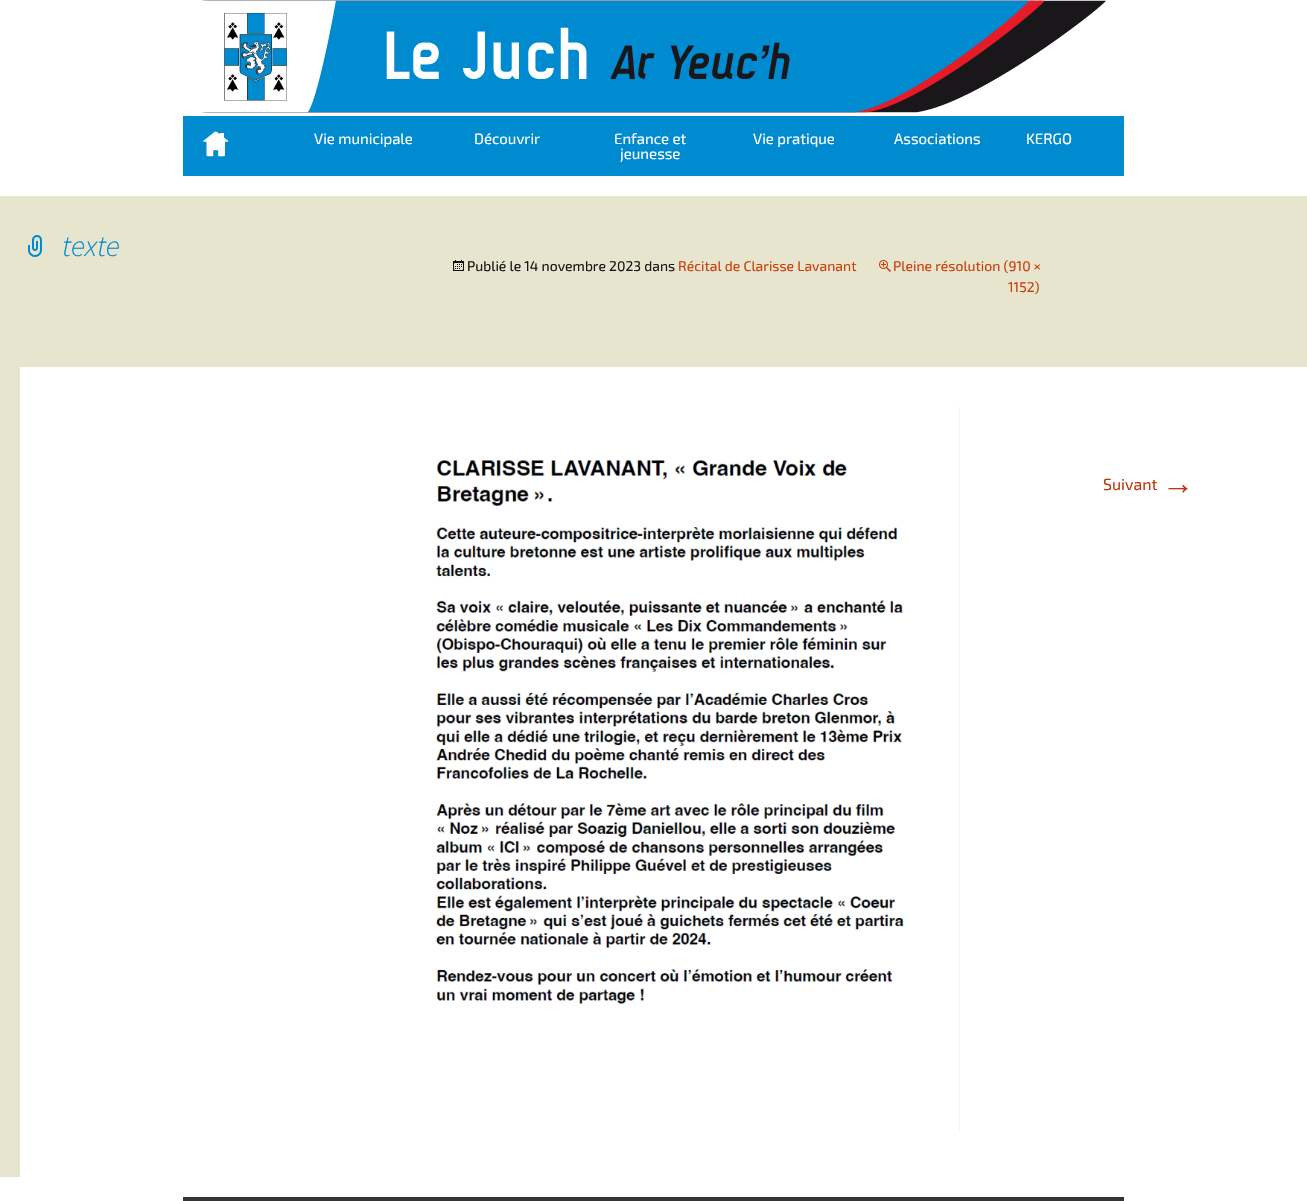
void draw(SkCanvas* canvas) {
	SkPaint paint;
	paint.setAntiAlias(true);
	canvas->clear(0xffffffff);
	canvas->drawImageRect(SkImages::DeferredFromEncodedData(SkData::MakeFromFileName("img1.png")), SkRect::MakeXYWH(202, 0, 904, 113), SkSamplingOptions());
	paint.setColor(0xff008acf);
	canvas->drawRect(SkRect::MakeXYWH(183, 116, 941, 60), paint);
	canvas->drawImageRect(SkImages::DeferredFromEncodedData(SkData::MakeFromFileName("img2.png")), SkRect::MakeXYWH(203, 131, 26, 26), SkSamplingOptions());
	SkFont f1(fontMgr->matchFamilyStyle("Exo 2", SkFontStyle::Normal()), 15);
	f1.setSubpixel(true);
	paint.setColor(0xffffffff);
	canvas->drawString("Vie municipale", 314, 144, f1, paint);
	canvas->drawString("Découvrir", 474, 144, f1, paint);
	canvas->drawString("Enfance et", 614, 144, f1, paint);
	canvas->drawString("jeunesse", 620, 159, f1, paint);
	canvas->drawString("Vie pratique", 753, 144, f1, paint);
	canvas->drawString("Associations", 894, 144, f1, paint);
	canvas->drawString("KERGO", 1026, 144, f1, paint);
	paint.setColor(0xffe8e5ce);
	canvas->drawRect(SkRect::MakeXYWH(0, 196, 1307, 981), paint);
	canvas->drawImageRect(SkImages::DeferredFromEncodedData(SkData::MakeFromFileName("img3.png")), SkRect::MakeXYWH(28, 235, 14, 22), SkSamplingOptions());
	SkFont f2(fontMgr->matchFamilyStyle("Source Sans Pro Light", SkFontStyle(300, SkFontStyle::kNormal_Width, SkFontStyle::kItalic_Slant)), 30);
	f2.setSubpixel(true);
	paint.setColor(0xff008acf);
	canvas->drawString("texte", 62, 256, f2, paint);
	canvas->drawImageRect(SkImages::DeferredFromEncodedData(SkData::MakeFromFileName("img4.png")), SkRect::MakeXYWH(453, 260, 11, 11), SkSamplingOptions());
	SkFont f3(fontMgr->matchFamilyStyle("Exo 2", SkFontStyle::Normal()), 14);
	f3.setSubpixel(true);
	paint.setColor(0xff141412);
	canvas->drawString("Publié le 14 novembre 2023 dans", 467, 271, f3, paint);
	paint.setColor(0xffca3c08);
	canvas->drawString("Récital de Clarisse Lavanant", 678, 271, f3, paint);
	canvas->drawImageRect(SkImages::DeferredFromEncodedData(SkData::MakeFromFileName("img5.png")), SkRect::MakeXYWH(879, 260, 12, 12), SkSamplingOptions());
	canvas->drawString("Pleine résolution (910 ×", 893, 271, f3, paint);
	canvas->drawString("1152)", 1008, 292, f3, paint);
	paint.setColor(0xffffffff);
	canvas->drawRect(SkRect::MakeXYWH(20, 367, 1287, 810), paint);
	canvas->drawImageRect(SkImages::DeferredFromEncodedData(SkData::MakeFromFileName("img6.png")), SkRect::MakeXYWH(435, 407, 525, 724), SkSamplingOptions());
	SkFont f4(fontMgr->matchFamilyStyle("Exo 2", SkFontStyle::Normal()), 16);
	f4.setSubpixel(true);
	paint.setColor(0xffbc360a);
	canvas->drawString("Suivant", 1103, 490, f4, paint);
	SkFont f5(fontMgr->matchFamilyStyle("Liberation Sans", SkFontStyle::Normal()), 32);
	f5.setSubpixel(true);
	canvas->drawString("→", 1162, 494, f5, paint);
	paint.setColor(0xff353535);
	canvas->drawRect(SkRect::MakeXYWH(183, 1197, 941, 4), paint);
}
